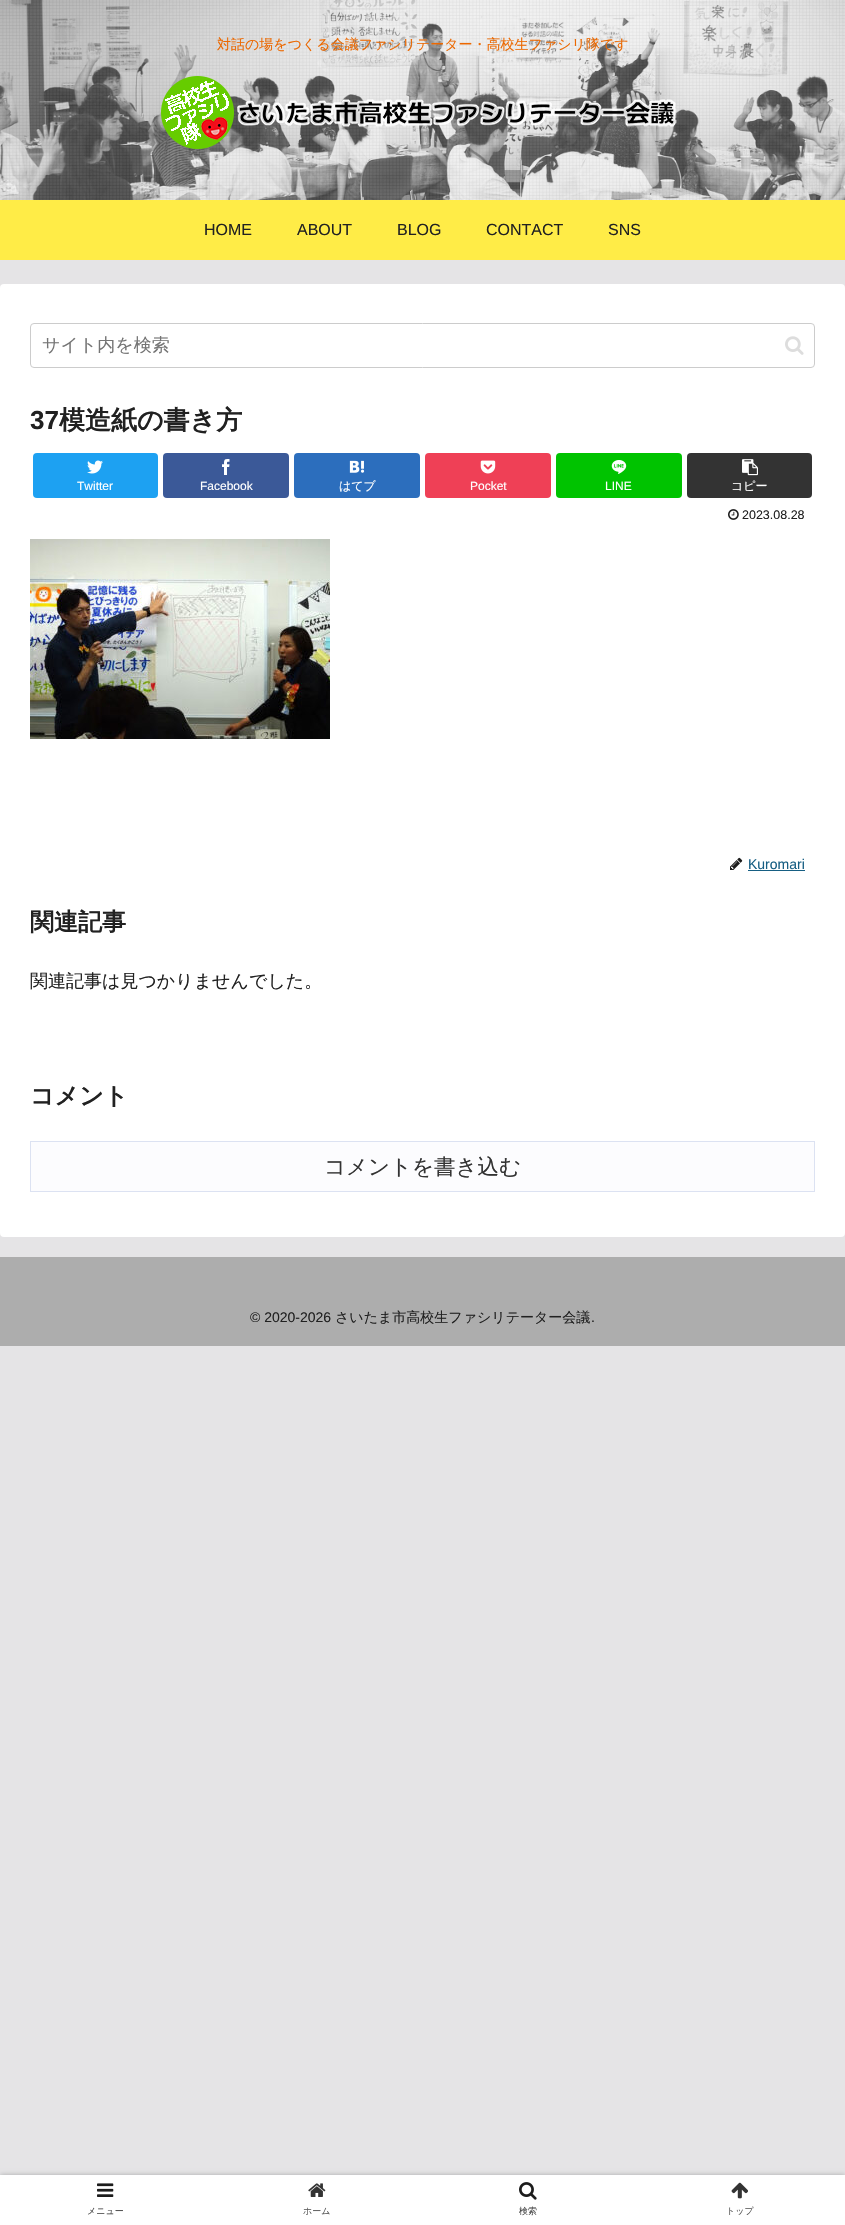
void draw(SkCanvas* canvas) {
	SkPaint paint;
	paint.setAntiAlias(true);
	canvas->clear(0xffe5e4e6);
	canvas->drawImageRect(SkImages::DeferredFromEncodedData(SkData::MakeFromFileName("img1.png")), SkRect::MakeXYWH(0, 0, 845, 200), SkSamplingOptions());
	SkFont f1(fontMgr->matchFamilyStyle("WenQuanYi Zen Hei", SkFontStyle(500, SkFontStyle::kNormal_Width, SkFontStyle::kUpright_Slant)), 14);
	f1.setSubpixel(true);
	paint.setColor(0xffec6800);
	canvas->drawString("対話の場をつくる会議ファシリテーター・高校生ファシリ隊です", 217, 49, f1, paint);
	canvas->drawImageRect(SkImages::DeferredFromEncodedData(SkData::MakeFromFileName("img2.png")), SkRect::MakeXYWH(161, 76, 516, 73), SkSamplingOptions());
	paint.setColor(0xffffec47);
	canvas->drawRect(SkRect::MakeXYWH(0, 200, 845, 60), paint);
	SkFont f2(fontMgr->matchFamilyStyle("Liberation Sans", SkFontStyle::Normal()), 16);
	f2.setSubpixel(true);
	paint.setColor(0xff212121);
	canvas->drawString("HOME", 204, 235, f2, paint);
	canvas->drawString("ABOUT", 297, 235, f2, paint);
	canvas->drawString("BLOG", 397, 235, f2, paint);
	canvas->drawString("CONTACT", 486, 235, f2, paint);
	canvas->drawString("SNS", 608, 235, f2, paint);
	paint.setColor(0xffffffff);
	canvas->drawRoundRect(SkRect::MakeXYWH(0, 284, 845, 953), 4, 4, paint);
	paint.setStroke(true);
	paint.setStrokeWidth(1);
	paint.setColor(0xffcccccc);
	canvas->drawRoundRect(SkRect::MakeXYWH(30.5, 323.5, 784, 44), 3.5, 3.5, paint);
	SkFont f3(fontMgr->matchFamilyStyle("WenQuanYi Zen Hei", SkFontStyle(500, SkFontStyle::kNormal_Width, SkFontStyle::kUpright_Slant)), 18);
	f3.setSubpixel(true);
	paint.setStroke(false);
	paint.setColor(0xff757575);
	canvas->drawString("サイト内を検索", 42, 351, f3, paint);
	canvas->drawImageRect(SkImages::DeferredFromEncodedData(SkData::MakeFromFileName("img3.png")), SkRect::MakeXYWH(785, 336, 19, 19), SkSamplingOptions());
	SkFont f4(fontMgr->matchFamilyStyle("Liberation Sans", SkFontStyle::Bold()), 26);
	f4.setSubpixel(true);
	paint.setColor(0xff212121);
	canvas->drawString("37", 30, 429, f4, paint);
	SkFont f5(fontMgr->matchFamilyStyle("WenQuanYi Zen Hei", SkFontStyle::Bold()), 26);
	f5.setSubpixel(true);
	canvas->drawString("模造紙の書き方", 59, 429, f5, paint);
	paint.setColor(0xff1da1f2);
	canvas->drawRoundRect(SkRect::MakeXYWH(33, 453, 125, 45), 4, 4, paint);
	canvas->drawImageRect(SkImages::DeferredFromEncodedData(SkData::MakeFromFileName("img4.png")), SkRect::MakeXYWH(87, 460, 16, 14), SkSamplingOptions());
	SkFont f6(fontMgr->matchFamilyStyle("Liberation Sans", SkFontStyle::Normal()), 12);
	f6.setSubpixel(true);
	paint.setColor(0xffffffff);
	canvas->drawString("Twitter", 77, 490, f6, paint);
	paint.setColor(0xff3b5998);
	canvas->drawRoundRect(SkRect::MakeXYWH(163, 453, 126, 45), 4, 4, paint);
	canvas->drawImageRect(SkImages::DeferredFromEncodedData(SkData::MakeFromFileName("img5.png")), SkRect::MakeXYWH(222, 459, 8, 16), SkSamplingOptions());
	paint.setColor(0xffffffff);
	canvas->drawString("Facebook", 200, 490, f6, paint);
	paint.setColor(0xff2c6ebd);
	canvas->drawRoundRect(SkRect::MakeXYWH(294, 453, 126, 45), 4, 4, paint);
	canvas->drawImageRect(SkImages::DeferredFromEncodedData(SkData::MakeFromFileName("img6.png")), SkRect::MakeXYWH(349, 460, 16, 13), SkSamplingOptions());
	SkFont f7(fontMgr->matchFamilyStyle("WenQuanYi Zen Hei", SkFontStyle(500, SkFontStyle::kNormal_Width, SkFontStyle::kUpright_Slant)), 12);
	f7.setSubpixel(true);
	paint.setColor(0xffffffff);
	canvas->drawString("はてブ", 339, 490, f7, paint);
	paint.setColor(0xffef4056);
	canvas->drawRoundRect(SkRect::MakeXYWH(425, 453, 126, 45), 4, 4, paint);
	canvas->drawImageRect(SkImages::DeferredFromEncodedData(SkData::MakeFromFileName("img7.png")), SkRect::MakeXYWH(480, 460, 16, 14), SkSamplingOptions());
	paint.setColor(0xffffffff);
	canvas->drawString("Pocket", 470, 490, f6, paint);
	paint.setColor(0xff00c300);
	canvas->drawRoundRect(SkRect::MakeXYWH(556, 453, 126, 45), 4, 4, paint);
	canvas->drawImageRect(SkImages::DeferredFromEncodedData(SkData::MakeFromFileName("img8.png")), SkRect::MakeXYWH(611, 460, 16, 14), SkSamplingOptions());
	paint.setColor(0xffffffff);
	canvas->drawString("LINE", 605, 490, f6, paint);
	paint.setColor(0xff333333);
	canvas->drawRoundRect(SkRect::MakeXYWH(687, 453, 125, 45), 4, 4, paint);
	canvas->drawImageRect(SkImages::DeferredFromEncodedData(SkData::MakeFromFileName("img9.png")), SkRect::MakeXYWH(742, 459, 16, 17), SkSamplingOptions());
	paint.setColor(0xffffffff);
	canvas->drawString("コピー", 731, 490, f7, paint);
	canvas->drawImageRect(SkImages::DeferredFromEncodedData(SkData::MakeFromFileName("img10.png")), SkRect::MakeXYWH(728, 509, 11, 11), SkSamplingOptions());
	SkFont f8(fontMgr->matchFamilyStyle("Liberation Sans", SkFontStyle::Normal()), 12.5);
	f8.setSubpixel(true);
	paint.setColor(0xff212121);
	canvas->drawString("2023.08.28", 742, 519, f8, paint);
	canvas->drawImageRect(SkImages::DeferredFromEncodedData(SkData::MakeFromFileName("img11.png")), SkRect::MakeXYWH(30, 539, 300, 200), SkSamplingOptions());
	canvas->drawImageRect(SkImages::DeferredFromEncodedData(SkData::MakeFromFileName("img12.png")), SkRect::MakeXYWH(730, 857, 13, 13), SkSamplingOptions());
	SkFont f9(fontMgr->matchFamilyStyle("Liberation Sans", SkFontStyle::Normal()), 14);
	f9.setSubpixel(true);
	paint.setColor(0xff165e83);
	canvas->drawString("Kuromari", 748, 869, f9, paint);
	canvas->drawRect(SkRect::MakeXYWH(748, 870, 57, 1), paint);
	SkFont f10(fontMgr->matchFamilyStyle("WenQuanYi Zen Hei", SkFontStyle::Bold()), 24);
	f10.setSubpixel(true);
	paint.setColor(0xff212121);
	canvas->drawString("関連記事", 30, 930, f10, paint);
	canvas->drawString("関連記事は見つかりませんでした。", 30, 987, f3, paint);
	canvas->drawString("コメント", 30, 1104, f10, paint);
	paint.setColor(0xfffcfcfe);
	canvas->drawRect(SkRect::MakeXYWH(30.5, 1141.5, 784, 50), paint);
	paint.setStroke(true);
	paint.setColor(0xffdce2f2);
	canvas->drawRect(SkRect::MakeXYWH(30.5, 1141.5, 784, 50), paint);
	SkFont f11(fontMgr->matchFamilyStyle("WenQuanYi Zen Hei", SkFontStyle(500, SkFontStyle::kNormal_Width, SkFontStyle::kUpright_Slant)), 21.5);
	f11.setSubpixel(true);
	paint.setStroke(false);
	paint.setColor(0xff333333);
	canvas->drawString("コメントを書き込む", 324, 1174, f11, paint);
	paint.setColor(0xffadadad);
	canvas->drawRect(SkRect::MakeXYWH(0, 1257, 845, 89), paint);
	paint.setColor(0xff212121);
	canvas->drawString("© 2020-2026", 250, 1322, f9, paint);
	canvas->drawString("さいたま市高校生ファシリテーター会議", 335, 1322, f1, paint);
	canvas->drawString(".", 591, 1322, f9, paint);
	paint.setColor(0xffa9a9a9);
	paint.setMaskFilter(SkMaskFilter::MakeBlur(kNormal_SkBlurStyle, 2.5));
	canvas->drawRect(SkRect::MakeXYWH(0, 2175, 845, 50), paint);
	paint.setMaskFilter(nullptr);
	paint.setColor(0xffffffff);
	canvas->drawRect(SkRect::MakeXYWH(0, 2175, 845, 50), paint);
	canvas->drawImageRect(SkImages::DeferredFromEncodedData(SkData::MakeFromFileName("img13.png")), SkRect::MakeXYWH(97, 2183, 17, 14), SkSamplingOptions());
	SkFont f12(fontMgr->matchFamilyStyle("WenQuanYi Zen Hei", SkFontStyle(500, SkFontStyle::kNormal_Width, SkFontStyle::kUpright_Slant)), 9);
	f12.setSubpixel(true);
	paint.setColor(0xff494949);
	canvas->drawString("メニュー", 87, 2214, f12, paint);
	canvas->drawImageRect(SkImages::DeferredFromEncodedData(SkData::MakeFromFileName("img14.png")), SkRect::MakeXYWH(308, 2183, 18, 14), SkSamplingOptions());
	paint.setColor(0xff5c5c5c);
	canvas->drawString("ホーム", 303, 2214, f12, paint);
	canvas->drawImageRect(SkImages::DeferredFromEncodedData(SkData::MakeFromFileName("img15.png")), SkRect::MakeXYWH(519, 2182, 18, 18), SkSamplingOptions());
	paint.setColor(0xff494949);
	canvas->drawString("検索", 519, 2214, f12, paint);
	canvas->drawImageRect(SkImages::DeferredFromEncodedData(SkData::MakeFromFileName("img16.png")), SkRect::MakeXYWH(731, 2182, 17, 17), SkSamplingOptions());
	paint.setColor(0xff5c5c5c);
	canvas->drawString("トップ", 726, 2214, f12, paint);
}
